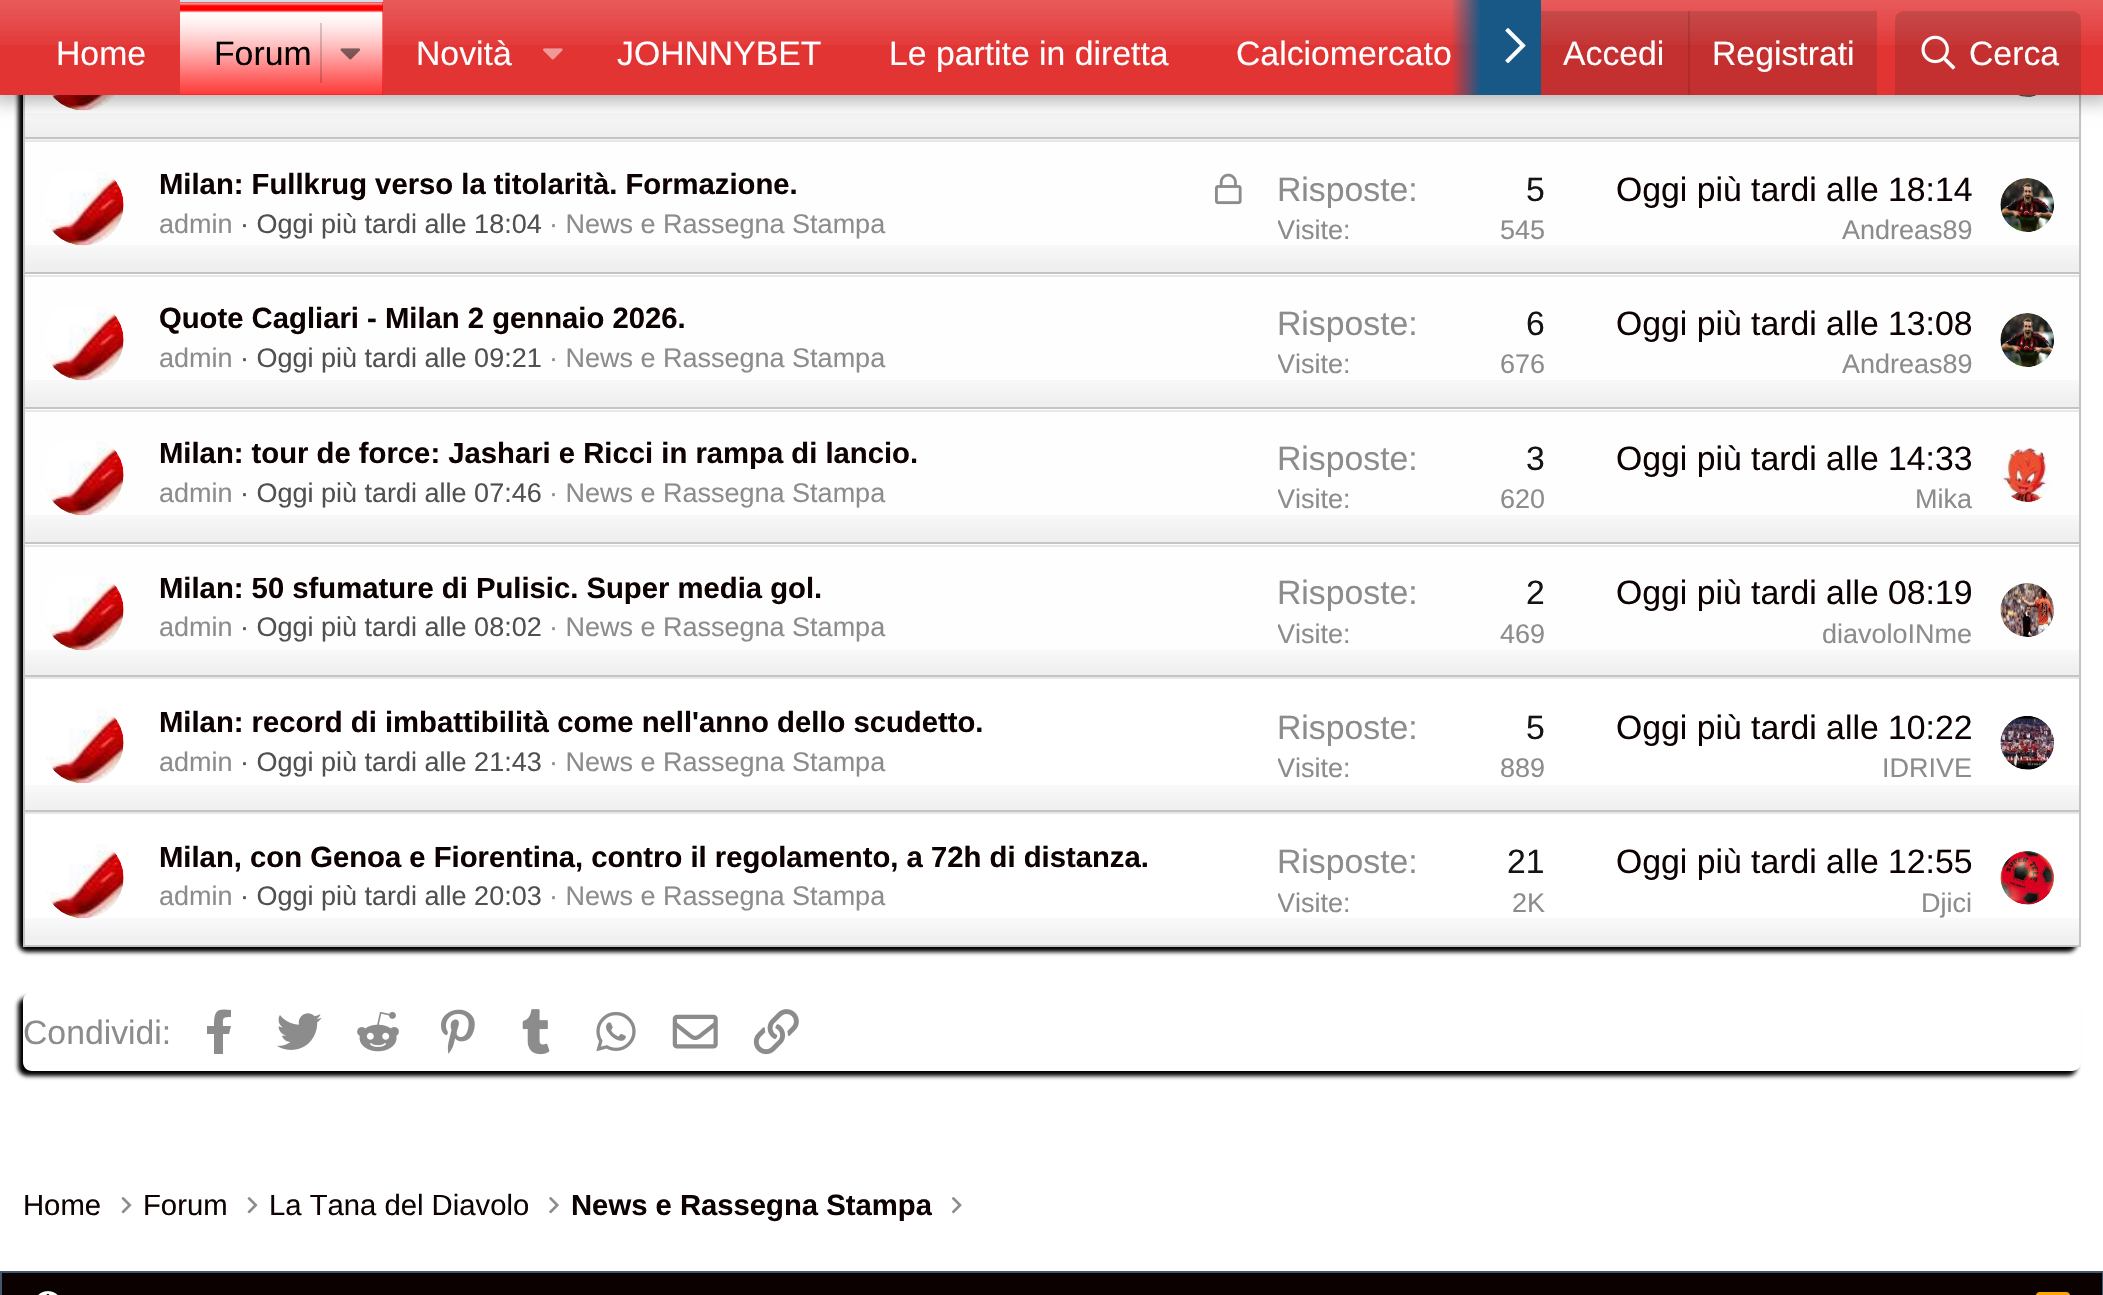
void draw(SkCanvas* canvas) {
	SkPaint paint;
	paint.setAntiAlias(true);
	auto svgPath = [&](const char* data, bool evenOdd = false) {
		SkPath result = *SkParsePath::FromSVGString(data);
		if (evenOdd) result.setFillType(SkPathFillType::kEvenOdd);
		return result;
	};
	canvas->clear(0xffffffff);
	paint.setColor(0xff000000);
	paint.setMaskFilter(SkMaskFilter::MakeBlur(kNormal_SkBlurStyle, 2));
	canvas->drawRoundRect(SkRect::MakeXYWH(18, -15, 2059, 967), 9, 9, paint);
	paint.setMaskFilter(nullptr);
	paint.setColor(0xfffefefe);
	canvas->drawRect(SkRect::MakeXYWH(25, 95, 2054, 580), paint);
	canvas->drawImageRect(SkImages::DeferredFromEncodedData(SkData::MakeFromFileName("img7.png")), SkRect::MakeXYWH(22, 113, 2057, 27), SkSamplingOptions());
	paint.setColor(0xffc4c4c4);
	canvas->drawRect(SkRect::MakeXYWH(2079, 95, 2, 45), paint);
	canvas->drawRect(SkRect::MakeXYWH(23, 137, 2058, 2), paint);
	canvas->drawRect(SkRect::MakeXYWH(23, 95, 2, 45), paint);
	canvas->drawImageRect(SkImages::DeferredFromEncodedData(SkData::MakeFromFileName("img8.png")), SkRect::MakeXYWH(51, 95, 64, 16), SkSamplingOptions());
	canvas->drawImageRect(SkImages::DeferredFromEncodedData(SkData::MakeFromFileName("img9.png")), SkRect::MakeXYWH(2017, 95, 20, 2), SkSamplingOptions());
	paint.setColor(0x4d000000);
	paint.setMaskFilter(SkMaskFilter::MakeBlur(kNormal_SkBlurStyle, 9));
	canvas->drawRect(SkRect::MakeXYWH(-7, -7, 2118, 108), paint);
	paint.setMaskFilter(nullptr);
	paint.setColor(0xffe33434);
	canvas->drawRect(SkRect::MakeXYWH(0, 0, 2103, 95), paint);
	canvas->drawImageRect(SkImages::DeferredFromEncodedData(SkData::MakeFromFileName("img1.png")), SkRect::MakeXYWH(0, 0, 2103, 45), SkSamplingOptions());
	SkFont f1(fontMgr->matchFamilyStyle("Liberation Sans", SkFontStyle::Normal()), 33.75);
	f1.setSubpixel(true);
	paint.setColor(0xfffefefe);
	canvas->drawString("Home", 56, 65, f1, paint);
	paint.setColor(0xffff0000);
	canvas->drawRect(SkRect::MakeXYWH(180, 2, 203, 93), paint);
	canvas->drawImageRect(SkImages::DeferredFromEncodedData(SkData::MakeFromFileName("img2.png")), SkRect::MakeXYWH(180, 2, 203, 93), SkSamplingOptions());
	paint.setColor(0xffcedfeb);
	canvas->drawRect(SkRect::MakeXYWH(180, 0, 203, 2), paint);
	paint.setColor(0xff000000);
	canvas->drawString("Forum", 214, 65, f1, paint);
	paint.setColor(0x2b0d0101);
	canvas->drawRect(SkRect::MakeXYWH(320, 23, 2, 60), paint);
	canvas->drawImageRect(SkImages::DeferredFromEncodedData(SkData::MakeFromFileName("img3.png")), SkRect::MakeXYWH(340, 48, 20, 12), SkSamplingOptions());
	paint.setColor(0xfffefefe);
	canvas->drawString("Novità", 416, 65, f1, paint);
	canvas->drawImageRect(SkImages::DeferredFromEncodedData(SkData::MakeFromFileName("img4.png")), SkRect::MakeXYWH(543, 48, 20, 12), SkSamplingOptions());
	canvas->drawString("JOHNNYBET", 617, 65, f1, paint);
	canvas->drawString("Le partite in diretta", 889, 65, f1, paint);
	canvas->drawString("Calciomercato", 1236, 65, f1, paint);
	{
		const SkColor colors[] = {0x00185886, 0xff185886};
		const float stops[] = {0, 0.33};
		const SkPoint ends[] = {{1451, 47}, {1541, 47}};
		paint.setShader(SkGradientShader::MakeLinear(ends, colors, stops, 2, SkTileMode::kClamp));
		paint.setAlpha(255);
	}
	canvas->drawRect(SkRect::MakeXYWH(1452, 0, 89, 95), paint);
	canvas->drawImageRect(SkImages::DeferredFromEncodedData(SkData::MakeFromFileName("img5.png")), SkRect::MakeXYWH(1505, 28, 21, 35), SkSamplingOptions());
	paint.setShader(nullptr);
	paint.setColor(0x26141414);
	canvas->drawRect(SkRect::MakeXYWH(1541, 11, 336, 84), paint);
	paint.setColor(0xfffefefe);
	canvas->drawString("Accedi", 1563, 65, f1, paint);
	paint.setColor(0x26141414);
	canvas->drawRect(SkRect::MakeXYWH(1688, 11, 2, 84), paint);
	paint.setColor(0xfffefefe);
	canvas->drawString("Registrati", 1712, 65, f1, paint);
	paint.setColor(0x26141414);
	canvas->drawPath(svgPath("M1904 11H2072C2077 11 2081 15 2081 20V95H1895V20C1895 15 1899 11 1904 11Z"), paint);
	canvas->drawImageRect(SkImages::DeferredFromEncodedData(SkData::MakeFromFileName("img6.png")), SkRect::MakeXYWH(1921, 35, 35, 35), SkSamplingOptions());
	paint.setColor(0xfffefefe);
	canvas->drawString("Cerca", 1969, 65, f1, paint);
	canvas->drawImageRect(SkImages::DeferredFromEncodedData(SkData::MakeFromFileName("img10.png")), SkRect::MakeXYWH(22, 245, 2057, 27), SkSamplingOptions());
	paint.setColor(0xffe7e7e7);
	canvas->drawRect(SkRect::MakeXYWH(23, 140, 2058, 2), paint);
	paint.setColor(0xffc4c4c4);
	canvas->drawRect(SkRect::MakeXYWH(2079, 140, 2, 135), paint);
	canvas->drawRect(SkRect::MakeXYWH(23, 272, 2058, 2), paint);
	canvas->drawRect(SkRect::MakeXYWH(23, 140, 2, 135), paint);
	canvas->drawImageRect(SkImages::DeferredFromEncodedData(SkData::MakeFromFileName("img11.png")), SkRect::MakeXYWH(46, 172, 78, 74), SkSamplingOptions());
	SkFont f2(fontMgr->matchFamilyStyle("Liberation Sans", SkFontStyle::Bold()), 29.25);
	f2.setSubpixel(true);
	paint.setColor(0xff0d0101);
	canvas->drawString("Milan: Fullkrug verso la titolarità. Formazione.", 159, 194, f2, paint);
	canvas->drawImageRect(SkImages::DeferredFromEncodedData(SkData::MakeFromFileName("img12.png")), SkRect::MakeXYWH(1215, 173, 27, 32), SkSamplingOptions());
	SkFont f3(fontMgr->matchFamilyStyle("Liberation Sans", SkFontStyle::Normal()), 27);
	f3.setSubpixel(true);
	paint.setColor(0xff8c8c8c);
	canvas->drawString("admin", 159, 233, f3, paint);
	paint.setColor(0xff505050);
	canvas->drawString("· Oggi più tardi alle 18:04", 240, 233, f3, paint);
	paint.setColor(0xff8c8c8c);
	canvas->drawString("· News e Rassegna Stampa", 549, 233, f3, paint);
	canvas->drawString("Risposte:", 1277, 201, f1, paint);
	paint.setColor(0xff141414);
	canvas->drawString("5", 1526, 201, f1, paint);
	canvas->save();
	canvas->clipRect(SkRect::MakeXYWH(1278, 212, 268, 38));
	paint.setColor(0xff8c8c8c);
	canvas->drawString("Visite", 1277, 239, f3, paint);
	canvas->restore();
	canvas->drawString(":", 1343, 239, f3, paint);
	canvas->drawString("545", 1500, 239, f3, paint);
	paint.setColor(0xff0d0101);
	canvas->drawString("Oggi più tardi alle 18:14", 1616, 201, f1, paint);
	paint.setColor(0xff8c8c8c);
	canvas->drawString("Andreas89", 1842, 239, f3, paint);
	canvas->drawImageRect(SkImages::DeferredFromEncodedData(SkData::MakeFromFileName("img13.png")), SkRect::MakeXYWH(2000, 178, 54, 54), SkSamplingOptions());
	canvas->drawImageRect(SkImages::DeferredFromEncodedData(SkData::MakeFromFileName("img10.png")), SkRect::MakeXYWH(22, 380, 2057, 27), SkSamplingOptions());
	paint.setColor(0xffe7e7e7);
	canvas->drawRect(SkRect::MakeXYWH(23, 275, 2058, 2), paint);
	paint.setColor(0xffc4c4c4);
	canvas->drawRect(SkRect::MakeXYWH(2079, 275, 2, 135), paint);
	canvas->drawRect(SkRect::MakeXYWH(23, 407, 2058, 2), paint);
	canvas->drawRect(SkRect::MakeXYWH(23, 275, 2, 135), paint);
	canvas->drawImageRect(SkImages::DeferredFromEncodedData(SkData::MakeFromFileName("img14.png")), SkRect::MakeXYWH(46, 307, 78, 74), SkSamplingOptions());
	paint.setColor(0xff0d0101);
	canvas->drawString("Quote Cagliari - Milan 2 gennaio 2026.", 159, 328, f2, paint);
	paint.setColor(0xff8c8c8c);
	canvas->drawString("admin", 159, 367, f3, paint);
	paint.setColor(0xff505050);
	canvas->drawString("· Oggi più tardi alle 09:21", 240, 367, f3, paint);
	paint.setColor(0xff8c8c8c);
	canvas->drawString("· News e Rassegna Stampa", 549, 367, f3, paint);
	canvas->drawString("Risposte:", 1277, 335, f1, paint);
	paint.setColor(0xff141414);
	canvas->drawString("6", 1526, 335, f1, paint);
	canvas->save();
	canvas->clipRect(SkRect::MakeXYWH(1278, 347, 268, 38));
	paint.setColor(0xff8c8c8c);
	canvas->drawString("Visite", 1277, 373, f3, paint);
	canvas->restore();
	canvas->drawString(":", 1343, 373, f3, paint);
	canvas->drawString("676", 1500, 373, f3, paint);
	paint.setColor(0xff0d0101);
	canvas->drawString("Oggi più tardi alle 13:08", 1616, 335, f1, paint);
	paint.setColor(0xff8c8c8c);
	canvas->drawString("Andreas89", 1842, 373, f3, paint);
	canvas->drawImageRect(SkImages::DeferredFromEncodedData(SkData::MakeFromFileName("img15.png")), SkRect::MakeXYWH(2000, 313, 54, 54), SkSamplingOptions());
	canvas->drawImageRect(SkImages::DeferredFromEncodedData(SkData::MakeFromFileName("img10.png")), SkRect::MakeXYWH(22, 515, 2057, 27), SkSamplingOptions());
	paint.setColor(0xffe7e7e7);
	canvas->drawRect(SkRect::MakeXYWH(23, 410, 2058, 2), paint);
	paint.setColor(0xffc4c4c4);
	canvas->drawRect(SkRect::MakeXYWH(2079, 410, 2, 135), paint);
	canvas->drawRect(SkRect::MakeXYWH(23, 542, 2058, 2), paint);
	canvas->drawRect(SkRect::MakeXYWH(23, 410, 2, 135), paint);
	canvas->drawImageRect(SkImages::DeferredFromEncodedData(SkData::MakeFromFileName("img11.png")), SkRect::MakeXYWH(46, 442, 78, 74), SkSamplingOptions());
	paint.setColor(0xff0d0101);
	canvas->drawString("Milan: tour de force: Jashari e Ricci in rampa di lancio.", 159, 463, f2, paint);
	paint.setColor(0xff8c8c8c);
	canvas->drawString("admin", 159, 502, f3, paint);
	paint.setColor(0xff505050);
	canvas->drawString("· Oggi più tardi alle 07:46", 240, 502, f3, paint);
	paint.setColor(0xff8c8c8c);
	canvas->drawString("· News e Rassegna Stampa", 549, 502, f3, paint);
	canvas->drawString("Risposte:", 1277, 470, f1, paint);
	paint.setColor(0xff141414);
	canvas->drawString("3", 1526, 470, f1, paint);
	canvas->save();
	canvas->clipRect(SkRect::MakeXYWH(1278, 482, 268, 38));
	paint.setColor(0xff8c8c8c);
	canvas->drawString("Visite", 1277, 508, f3, paint);
	canvas->restore();
	canvas->drawString(":", 1343, 508, f3, paint);
	canvas->drawString("620", 1500, 508, f3, paint);
	paint.setColor(0xff0d0101);
	canvas->drawString("Oggi più tardi alle 14:33", 1616, 470, f1, paint);
	paint.setColor(0xff8c8c8c);
	canvas->drawString("Mika", 1915, 508, f3, paint);
	canvas->drawImageRect(SkImages::DeferredFromEncodedData(SkData::MakeFromFileName("img16.png")), SkRect::MakeXYWH(2001, 448, 53, 54), SkSamplingOptions());
	canvas->drawImageRect(SkImages::DeferredFromEncodedData(SkData::MakeFromFileName("img10.png")), SkRect::MakeXYWH(22, 650, 2057, 27), SkSamplingOptions());
	paint.setColor(0xffe7e7e7);
	canvas->drawRect(SkRect::MakeXYWH(23, 545, 2058, 2), paint);
	paint.setColor(0xffc4c4c4);
	canvas->drawRect(SkRect::MakeXYWH(2079, 545, 2, 132), paint);
	canvas->drawRect(SkRect::MakeXYWH(23, 675, 2058, 2), paint);
	canvas->drawRect(SkRect::MakeXYWH(23, 545, 2, 132), paint);
	canvas->drawImageRect(SkImages::DeferredFromEncodedData(SkData::MakeFromFileName("img17.png")), SkRect::MakeXYWH(46, 577, 78, 74), SkSamplingOptions());
	paint.setColor(0xff0d0101);
	canvas->drawString("Milan: 50 sfumature di Pulisic. Super media gol.", 159, 598, f2, paint);
	paint.setColor(0xff8c8c8c);
	canvas->drawString("admin", 159, 636, f3, paint);
	paint.setColor(0xff505050);
	canvas->drawString("· Oggi più tardi alle 08:02", 240, 636, f3, paint);
	paint.setColor(0xff8c8c8c);
	canvas->drawString("· News e Rassegna Stampa", 549, 636, f3, paint);
	canvas->drawString("Risposte:", 1277, 604, f1, paint);
	paint.setColor(0xff141414);
	canvas->drawString("2", 1526, 604, f1, paint);
	canvas->save();
	canvas->clipRect(SkRect::MakeXYWH(1278, 617, 268, 36));
	paint.setColor(0xff8c8c8c);
	canvas->drawString("Visite", 1277, 643, f3, paint);
	canvas->restore();
	canvas->drawString(":", 1343, 643, f3, paint);
	canvas->drawString("469", 1500, 643, f3, paint);
	paint.setColor(0xff0d0101);
	canvas->drawString("Oggi più tardi alle 08:19", 1616, 604, f1, paint);
	paint.setColor(0xff8c8c8c);
	canvas->drawString("diavoloINme", 1822, 643, f3, paint);
	canvas->drawImageRect(SkImages::DeferredFromEncodedData(SkData::MakeFromFileName("img18.png")), SkRect::MakeXYWH(2000, 583, 54, 54), SkSamplingOptions());
	paint.setColor(0xffffffff);
	canvas->drawRect(SkRect::MakeXYWH(25, 679, 2054, 131), paint);
	canvas->drawImageRect(SkImages::DeferredFromEncodedData(SkData::MakeFromFileName("img19.png")), SkRect::MakeXYWH(22, 785, 2057, 27), SkSamplingOptions());
	paint.setColor(0xffe7e7e7);
	canvas->drawRect(SkRect::MakeXYWH(23, 677, 2058, 2), paint);
	paint.setColor(0xffc4c4c4);
	canvas->drawRect(SkRect::MakeXYWH(2079, 677, 2, 135), paint);
	canvas->drawRect(SkRect::MakeXYWH(23, 810, 2058, 2), paint);
	canvas->drawRect(SkRect::MakeXYWH(23, 677, 2, 135), paint);
	canvas->drawImageRect(SkImages::DeferredFromEncodedData(SkData::MakeFromFileName("img20.png")), SkRect::MakeXYWH(45, 708, 79, 75), SkSamplingOptions());
	paint.setColor(0xff0d0101);
	canvas->drawString("Milan: record di imbattibilità come nell'anno dello scudetto.", 159, 732, f2, paint);
	paint.setColor(0xff8c8c8c);
	canvas->drawString("admin", 159, 771, f3, paint);
	paint.setColor(0xff505050);
	canvas->drawString("· Oggi più tardi alle 21:43", 240, 771, f3, paint);
	paint.setColor(0xff8c8c8c);
	canvas->drawString("· News e Rassegna Stampa", 549, 771, f3, paint);
	canvas->drawString("Risposte:", 1277, 739, f1, paint);
	paint.setColor(0xff141414);
	canvas->drawString("5", 1526, 739, f1, paint);
	canvas->save();
	canvas->clipRect(SkRect::MakeXYWH(1278, 749, 268, 39));
	paint.setColor(0xff8c8c8c);
	canvas->drawString("Visite", 1277, 777, f3, paint);
	canvas->restore();
	canvas->drawString(":", 1343, 777, f3, paint);
	canvas->drawString("889", 1500, 777, f3, paint);
	paint.setColor(0xff0d0101);
	canvas->drawString("Oggi più tardi alle 10:22", 1616, 739, f1, paint);
	paint.setColor(0xff8c8c8c);
	canvas->drawString("IDRIVE", 1882, 777, f3, paint);
	canvas->drawImageRect(SkImages::DeferredFromEncodedData(SkData::MakeFromFileName("img21.png")), SkRect::MakeXYWH(2000, 716, 54, 54), SkSamplingOptions());
	paint.setColor(0xffffffff);
	canvas->drawRect(SkRect::MakeXYWH(25, 814, 2054, 131), paint);
	canvas->drawImageRect(SkImages::DeferredFromEncodedData(SkData::MakeFromFileName("img22.png")), SkRect::MakeXYWH(25, 918, 2054, 27), SkSamplingOptions());
	paint.setColor(0xffe7e7e7);
	canvas->drawRect(SkRect::MakeXYWH(23, 812, 2058, 2), paint);
	paint.setColor(0xffc4c4c4);
	canvas->drawRect(SkRect::MakeXYWH(2079, 812, 2, 135), paint);
	canvas->drawRect(SkRect::MakeXYWH(23, 945, 2058, 2), paint);
	canvas->drawRect(SkRect::MakeXYWH(23, 812, 2, 135), paint);
	canvas->drawImageRect(SkImages::DeferredFromEncodedData(SkData::MakeFromFileName("img23.png")), SkRect::MakeXYWH(46, 844, 78, 74), SkSamplingOptions());
	paint.setColor(0xff0d0101);
	canvas->drawString("Milan, con Genoa e Fiorentina, contro il regolamento, a 72h di distanza.", 159, 867, f2, paint);
	paint.setColor(0xff8c8c8c);
	canvas->drawString("admin", 159, 905, f3, paint);
	paint.setColor(0xff505050);
	canvas->drawString("· Oggi più tardi alle 20:03", 240, 905, f3, paint);
	paint.setColor(0xff8c8c8c);
	canvas->drawString("· News e Rassegna Stampa", 549, 905, f3, paint);
	canvas->drawString("Risposte:", 1277, 873, f1, paint);
	paint.setColor(0xff141414);
	canvas->drawString("21", 1507, 873, f1, paint);
	canvas->save();
	canvas->clipRect(SkRect::MakeXYWH(1278, 884, 268, 39));
	paint.setColor(0xff8c8c8c);
	canvas->drawString("Visite", 1277, 912, f3, paint);
	canvas->restore();
	canvas->drawString(":", 1343, 912, f3, paint);
	canvas->drawString("2K", 1512, 912, f3, paint);
	paint.setColor(0xff0d0101);
	canvas->drawString("Oggi più tardi alle 12:55", 1616, 873, f1, paint);
	paint.setColor(0xff8c8c8c);
	canvas->drawString("Djici", 1921, 912, f3, paint);
	canvas->drawImageRect(SkImages::DeferredFromEncodedData(SkData::MakeFromFileName("img24.png")), SkRect::MakeXYWH(2000, 851, 54, 54), SkSamplingOptions());
	canvas->save();
	canvas->clipPath(svgPath("M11 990H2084V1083H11ZM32 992H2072C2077 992 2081 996 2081 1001V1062C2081 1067 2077 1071 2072 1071H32C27 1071 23 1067 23 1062V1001C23 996 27 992 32 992Z", true), true);
	paint.setColor(0xff000000);
	paint.setMaskFilter(SkMaskFilter::MakeBlur(kNormal_SkBlurStyle, 2));
	canvas->drawRoundRect(SkRect::MakeXYWH(18, 997, 2059, 79), 9, 9, paint);
	paint.setMaskFilter(nullptr);
	canvas->restore();
	paint.setColor(0xff8c8c8c);
	canvas->drawString("Condividi:", 23, 1044, f1, paint);
	canvas->drawPath(svgPath("M229 1034H223V1054H214V1034H207V1026H214C214 1011 216 1008 231 1010V1017C222 1017 223 1018 223 1026H231Z"), paint);
	canvas->drawImageRect(SkImages::DeferredFromEncodedData(SkData::MakeFromFileName("img25.png")), SkRect::MakeXYWH(277, 1013, 45, 37), SkSamplingOptions());
	canvas->drawImageRect(SkImages::DeferredFromEncodedData(SkData::MakeFromFileName("img26.png")), SkRect::MakeXYWH(357, 1012, 42, 40), SkSamplingOptions());
	canvas->drawImageRect(SkImages::DeferredFromEncodedData(SkData::MakeFromFileName("img27.png")), SkRect::MakeXYWH(441, 1009, 34, 45), SkSamplingOptions());
	canvas->drawImageRect(SkImages::DeferredFromEncodedData(SkData::MakeFromFileName("img28.png")), SkRect::MakeXYWH(522, 1009, 28, 46), SkSamplingOptions());
	canvas->drawImageRect(SkImages::DeferredFromEncodedData(SkData::MakeFromFileName("img29.png")), SkRect::MakeXYWH(596, 1011, 40, 41), SkSamplingOptions());
	canvas->drawImageRect(SkImages::DeferredFromEncodedData(SkData::MakeFromFileName("img30.png")), SkRect::MakeXYWH(672, 1014, 46, 35), SkSamplingOptions());
	canvas->drawImageRect(SkImages::DeferredFromEncodedData(SkData::MakeFromFileName("img31.png")), SkRect::MakeXYWH(753, 1009, 46, 46), SkSamplingOptions());
	SkFont f4(fontMgr->matchFamilyStyle("Liberation Sans", SkFontStyle::Normal()), 29.25);
	f4.setSubpixel(true);
	paint.setColor(0xff0d0101);
	canvas->drawString("Home", 23, 1215, f4, paint);
	canvas->drawImageRect(SkImages::DeferredFromEncodedData(SkData::MakeFromFileName("img32.png")), SkRect::MakeXYWH(121, 1197, 11, 17), SkSamplingOptions());
	canvas->drawString("Forum", 143, 1215, f4, paint);
	canvas->drawImageRect(SkImages::DeferredFromEncodedData(SkData::MakeFromFileName("img32.png")), SkRect::MakeXYWH(247, 1197, 11, 17), SkSamplingOptions());
	canvas->drawString("La Tana del Diavolo", 269, 1215, f4, paint);
	canvas->drawImageRect(SkImages::DeferredFromEncodedData(SkData::MakeFromFileName("img33.png")), SkRect::MakeXYWH(549, 1197, 10, 17), SkSamplingOptions());
	canvas->save();
	canvas->clipRect(SkRect::MakeXYWH(572, 1184, 360, 42));
	canvas->drawString("News e Rassegna Stampa", 571, 1215, f2, paint);
	canvas->restore();
	canvas->drawImageRect(SkImages::DeferredFromEncodedData(SkData::MakeFromFileName("img34.png")), SkRect::MakeXYWH(951, 1197, 11, 17), SkSamplingOptions());
	paint.setColor(0xff0b0101);
	canvas->drawRect(SkRect::MakeXYWH(1, 1272, 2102, 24), paint);
	paint.setStroke(true);
	paint.setStrokeWidth(2);
	paint.setColor(0xff425769);
	canvas->drawRect(SkRect::MakeXYWH(1, 1272, 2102, 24), paint);
	canvas->drawImageRect(SkImages::DeferredFromEncodedData(SkData::MakeFromFileName("img35.png")), SkRect::MakeXYWH(38, 1291, 20, 4), SkSamplingOptions());
	paint.setStroke(false);
	paint.setColor(0xffffa500);
	canvas->drawRoundRect(SkRect::MakeXYWH(2036, 1292, 34, 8), 5, 5, paint);
}
